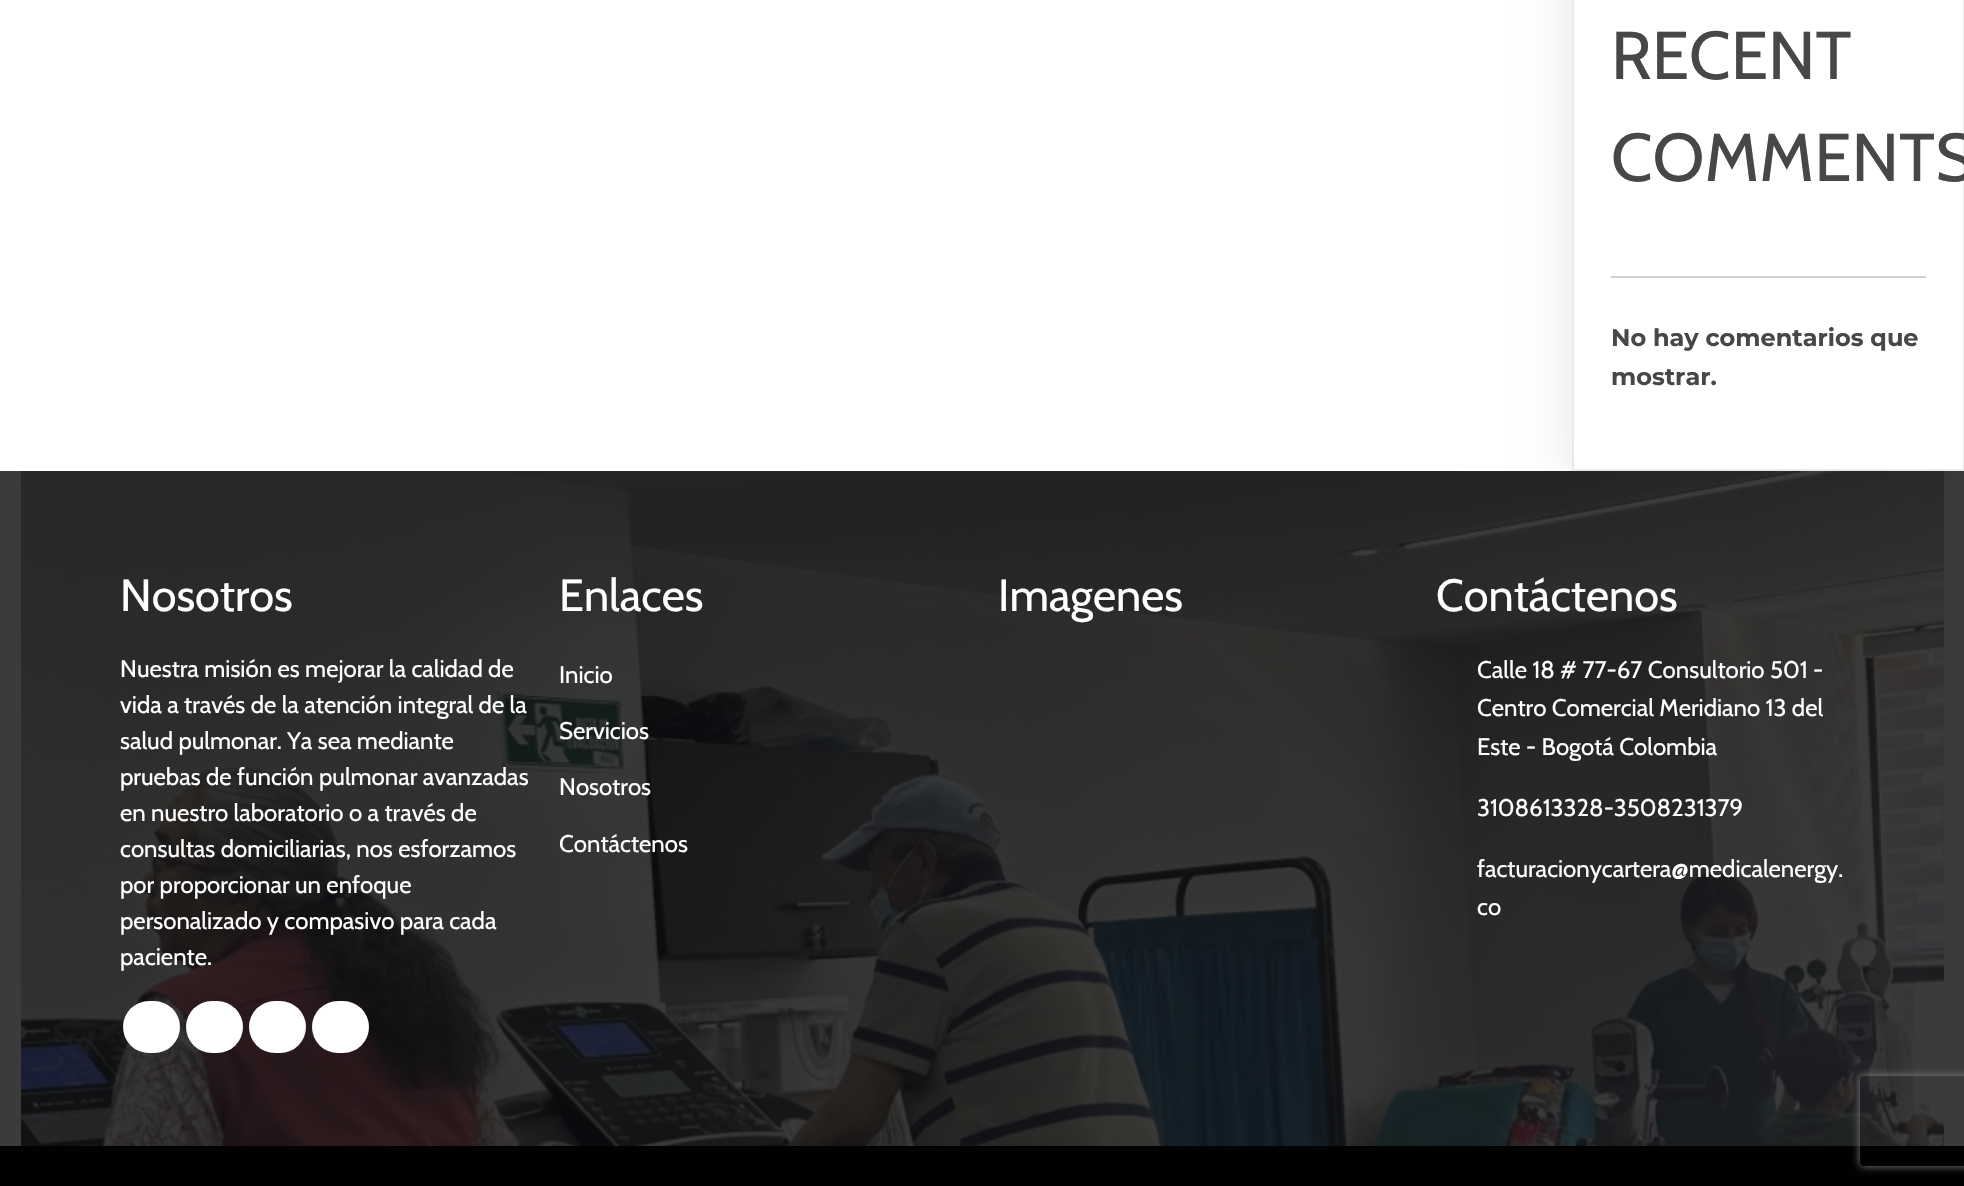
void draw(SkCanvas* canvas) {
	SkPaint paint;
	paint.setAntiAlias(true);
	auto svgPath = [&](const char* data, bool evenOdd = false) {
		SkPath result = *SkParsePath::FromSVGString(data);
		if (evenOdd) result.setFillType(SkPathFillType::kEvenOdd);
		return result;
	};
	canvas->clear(0xffffffff);
	canvas->save();
	canvas->clipPath(svgPath("M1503 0H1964V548H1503ZM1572-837H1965V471H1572Z", true), true);
	paint.setColor(0x1a000000);
	paint.setMaskFilter(SkMaskFilter::MakeBlur(kNormal_SkBlurStyle, 22.5));
	canvas->drawRect(SkRect::MakeXYWH(1572, -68, 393, 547), paint);
	paint.setMaskFilter(nullptr);
	canvas->restore();
	paint.setStroke(true);
	paint.setStrokeWidth(2);
	paint.setColor(0xffeaeaea);
	canvas->drawRect(SkRect::MakeXYWH(1573, -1, 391, 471), paint);
	SkFont f1(fontMgr->matchFamilyStyle("Cabin", SkFontStyle::Normal()), 67.5);
	f1.setSubpixel(true);
	paint.setStroke(false);
	paint.setColor(0xff474747);
	canvas->drawString("RECENT", 1611, 79, f1, paint);
	canvas->drawString("COMMENTS", 1611, 181, f1, paint);
	paint.setColor(0xffd1d1d1);
	canvas->drawRect(SkRect::MakeXYWH(1611, 276, 315, 2), paint);
	SkFont f2(fontMgr->matchFamilyStyle("Montserrat", SkFontStyle::Bold()), 24);
	f2.setSubpixel(true);
	paint.setColor(0xff474747);
	canvas->drawString("No hay comentarios que", 1611, 346, f2, paint);
	canvas->drawString("mostrar.", 1611, 385, f2, paint);
	canvas->drawImageRect(SkImages::DeferredFromEncodedData(SkData::MakeFromFileName("img1.png")), SkRect::MakeXYWH(21, 471, 1923, 675), SkSamplingOptions());
	paint.setColor(0xcc0a0a0b);
	canvas->drawRect(SkRect::MakeXYWH(0, 471, 1964, 675), paint);
	SkFont f3(fontMgr->matchFamilyStyle("Cabin", SkFontStyle::Normal()), 45);
	f3.setSubpixel(true);
	paint.setColor(0xffffffff);
	canvas->drawString("Nosotros", 120, 611, f3, paint);
	SkFont f4(fontMgr->matchFamilyStyle("Cabin", SkFontStyle::Normal()), 24);
	f4.setSubpixel(true);
	canvas->drawString("Nuestra misión es mejorar la calidad de", 120, 677, f4, paint);
	canvas->drawString("vida a través de la atención integral de la", 120, 713, f4, paint);
	canvas->drawString("salud pulmonar. Ya sea mediante", 120, 749, f4, paint);
	canvas->drawString("pruebas de función pulmonar avanzadas", 120, 785, f4, paint);
	canvas->drawString("en nuestro laboratorio o a través de", 120, 821, f4, paint);
	canvas->drawString("consultas domiciliarias, nos esforzamos", 120, 857, f4, paint);
	canvas->drawString("por proporcionar un enfoque", 120, 893, f4, paint);
	canvas->drawString("personalizado y compasivo para cada", 120, 929, f4, paint);
	canvas->drawString("paciente.", 120, 965, f4, paint);
	canvas->drawRoundRect(SkRect::MakeXYWH(123, 1001, 57, 52), 26, 26, paint);
	canvas->drawRoundRect(SkRect::MakeXYWH(186, 1001, 57, 52), 26, 26, paint);
	canvas->drawRoundRect(SkRect::MakeXYWH(249, 1001, 57, 52), 26, 26, paint);
	canvas->drawRoundRect(SkRect::MakeXYWH(312, 1001, 57, 52), 26, 26, paint);
	canvas->drawString("Enlaces", 559, 611, f3, paint);
	canvas->drawString("Inicio", 559, 683, f4, paint);
	canvas->drawString("Servicios", 559, 739, f4, paint);
	canvas->drawString("Nosotros", 559, 795, f4, paint);
	canvas->drawString("Contáctenos", 559, 852, f4, paint);
	canvas->drawString("Imagenes", 998, 611, f3, paint);
	canvas->drawString("Contáctenos", 1436, 611, f3, paint);
	canvas->drawString("Calle 18 # 77-67 Consultorio 501 -", 1477, 678, f4, paint);
	canvas->drawString("Centro Comercial Meridiano 13 del", 1477, 716, f4, paint);
	canvas->drawString("Este - Bogotá Colombia", 1477, 755, f4, paint);
	canvas->drawString("3108613328-3508231379", 1477, 816, f4, paint);
	canvas->drawString("facturacionycartera@medicalenergy.", 1477, 877, f4, paint);
	canvas->drawString("co", 1477, 915, f4, paint);
	paint.setColor(0xff010101);
	canvas->drawRect(SkRect::MakeXYWH(0, 1146, 1964, 40), paint);
	canvas->save();
	canvas->clipPath(svgPath("M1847 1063H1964V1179H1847ZM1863 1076H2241C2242.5 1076 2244 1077.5 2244 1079V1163C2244 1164.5 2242.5 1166 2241 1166H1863C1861.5 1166 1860 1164.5 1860 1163V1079C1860 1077.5 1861.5 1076 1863 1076Z", true), true);
	paint.setColor(0xff808080);
	paint.setMaskFilter(SkMaskFilter::MakeBlur(kNormal_SkBlurStyle, 4));
	canvas->drawRoundRect(SkRect::MakeXYWH(1860, 1076, 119, 90), 3, 3, paint);
	paint.setMaskFilter(nullptr);
	canvas->restore();
}
